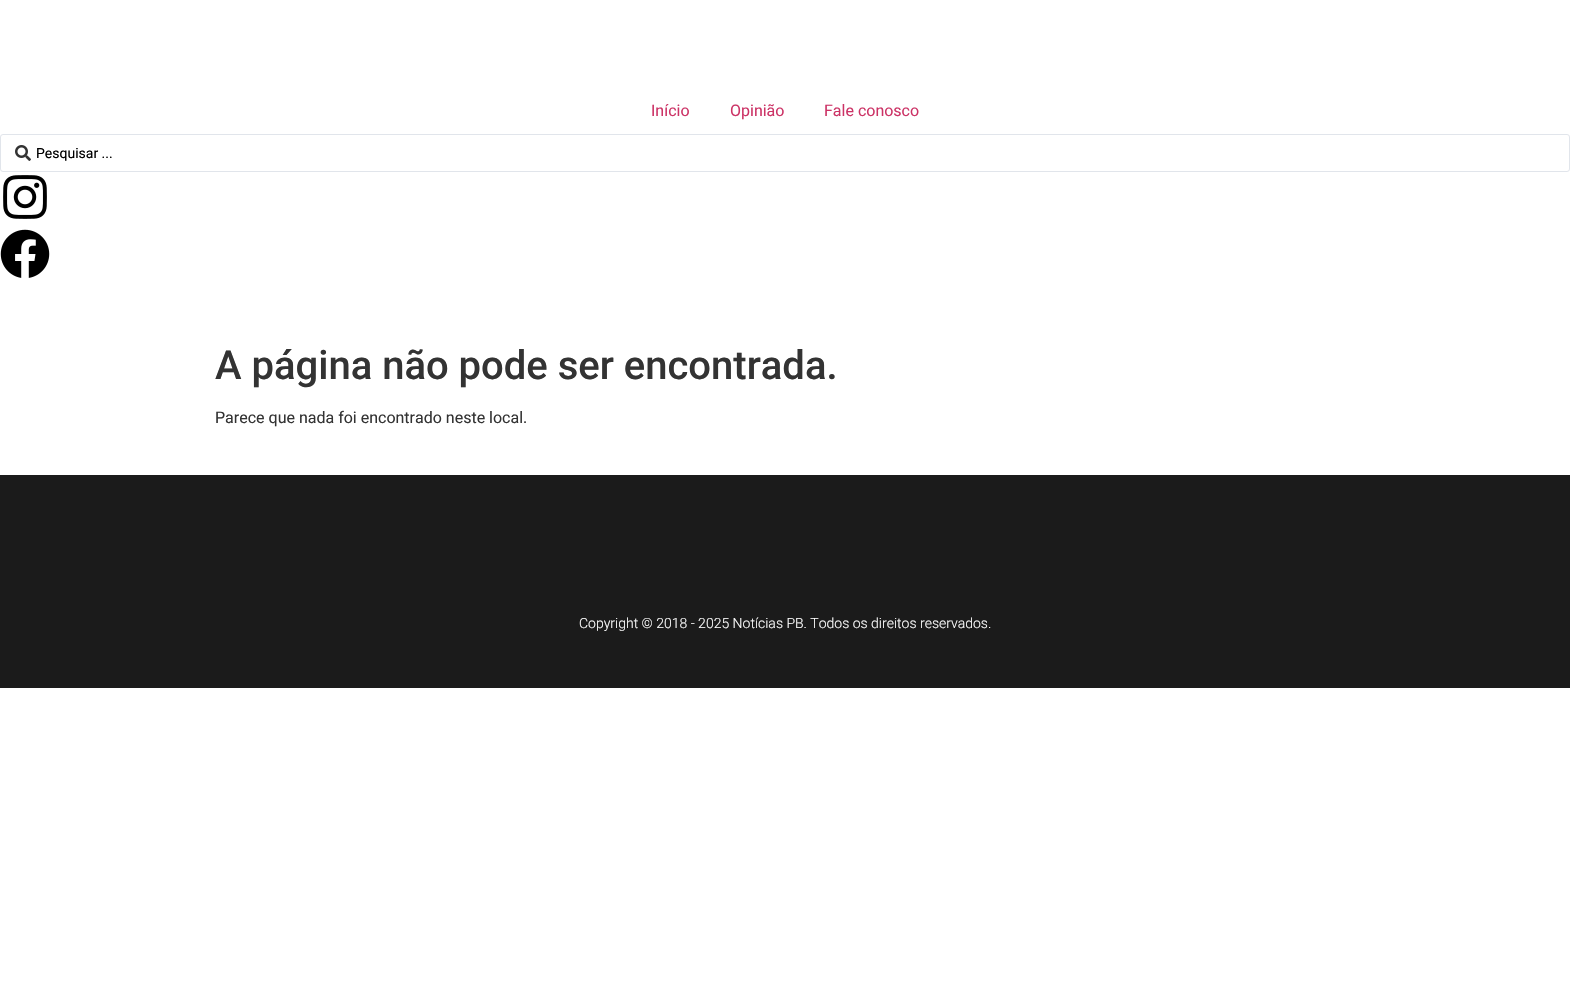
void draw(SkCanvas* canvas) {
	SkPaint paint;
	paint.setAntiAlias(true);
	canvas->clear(0xffffffff);
	SkFont f1(fontMgr->matchFamilyStyle("Roboto", SkFontStyle::Normal()), 16);
	f1.setSubpixel(true);
	paint.setColor(0xffcc3366);
	canvas->drawString("Início", 651, 116, f1, paint);
	canvas->drawString("Opinião", 730, 116, f1, paint);
	canvas->drawString("Fale conosco", 824, 116, f1, paint);
	paint.setStroke(true);
	paint.setStrokeWidth(1);
	paint.setColor(0xffe1e5eb);
	canvas->drawRoundRect(SkRect::MakeXYWH(0.5, 134.5, 1569, 37), 2.5, 2.5, paint);
	canvas->drawImageRect(SkImages::DeferredFromEncodedData(SkData::MakeFromFileName("img1.png")), SkRect::MakeXYWH(15, 145, 16, 16), SkSamplingOptions());
	SkFont f2(fontMgr->matchFamilyStyle("Roboto", SkFontStyle::Normal()), 14);
	f2.setSubpixel(true);
	paint.setStroke(false);
	paint.setColor(0xff000000);
	canvas->drawString("Pesquisar ...", 36, 158, f2, paint);
	canvas->drawImageRect(SkImages::DeferredFromEncodedData(SkData::MakeFromFileName("img2.png")), SkRect::MakeXYWH(3, 175, 44, 44), SkSamplingOptions());
	canvas->drawImageRect(SkImages::DeferredFromEncodedData(SkData::MakeFromFileName("img3.png")), SkRect::MakeXYWH(0, 229, 50, 49), SkSamplingOptions());
	SkFont f3(fontMgr->matchFamilyStyle("Roboto", SkFontStyle(500, SkFontStyle::kNormal_Width, SkFontStyle::kUpright_Slant)), 40);
	f3.setSubpixel(true);
	paint.setColor(0xff333333);
	canvas->drawString("A página não pode ser encontrada.", 215, 379, f3, paint);
	canvas->drawString("Parece que nada foi encontrado neste local.", 215, 423, f1, paint);
	paint.setColor(0xff1b1b1b);
	canvas->drawRect(SkRect::MakeXYWH(0, 475, 1570, 213), paint);
	SkFont f4(fontMgr->matchFamilyStyle("Roboto", SkFontStyle(300, SkFontStyle::kNormal_Width, SkFontStyle::kUpright_Slant)), 14);
	f4.setSubpixel(true);
	paint.setColor(0xffffffff);
	canvas->drawString("Copyright © 2018 - 2025 Notícias PB. Todos os direitos reservados.", 579, 628, f4, paint);
}
